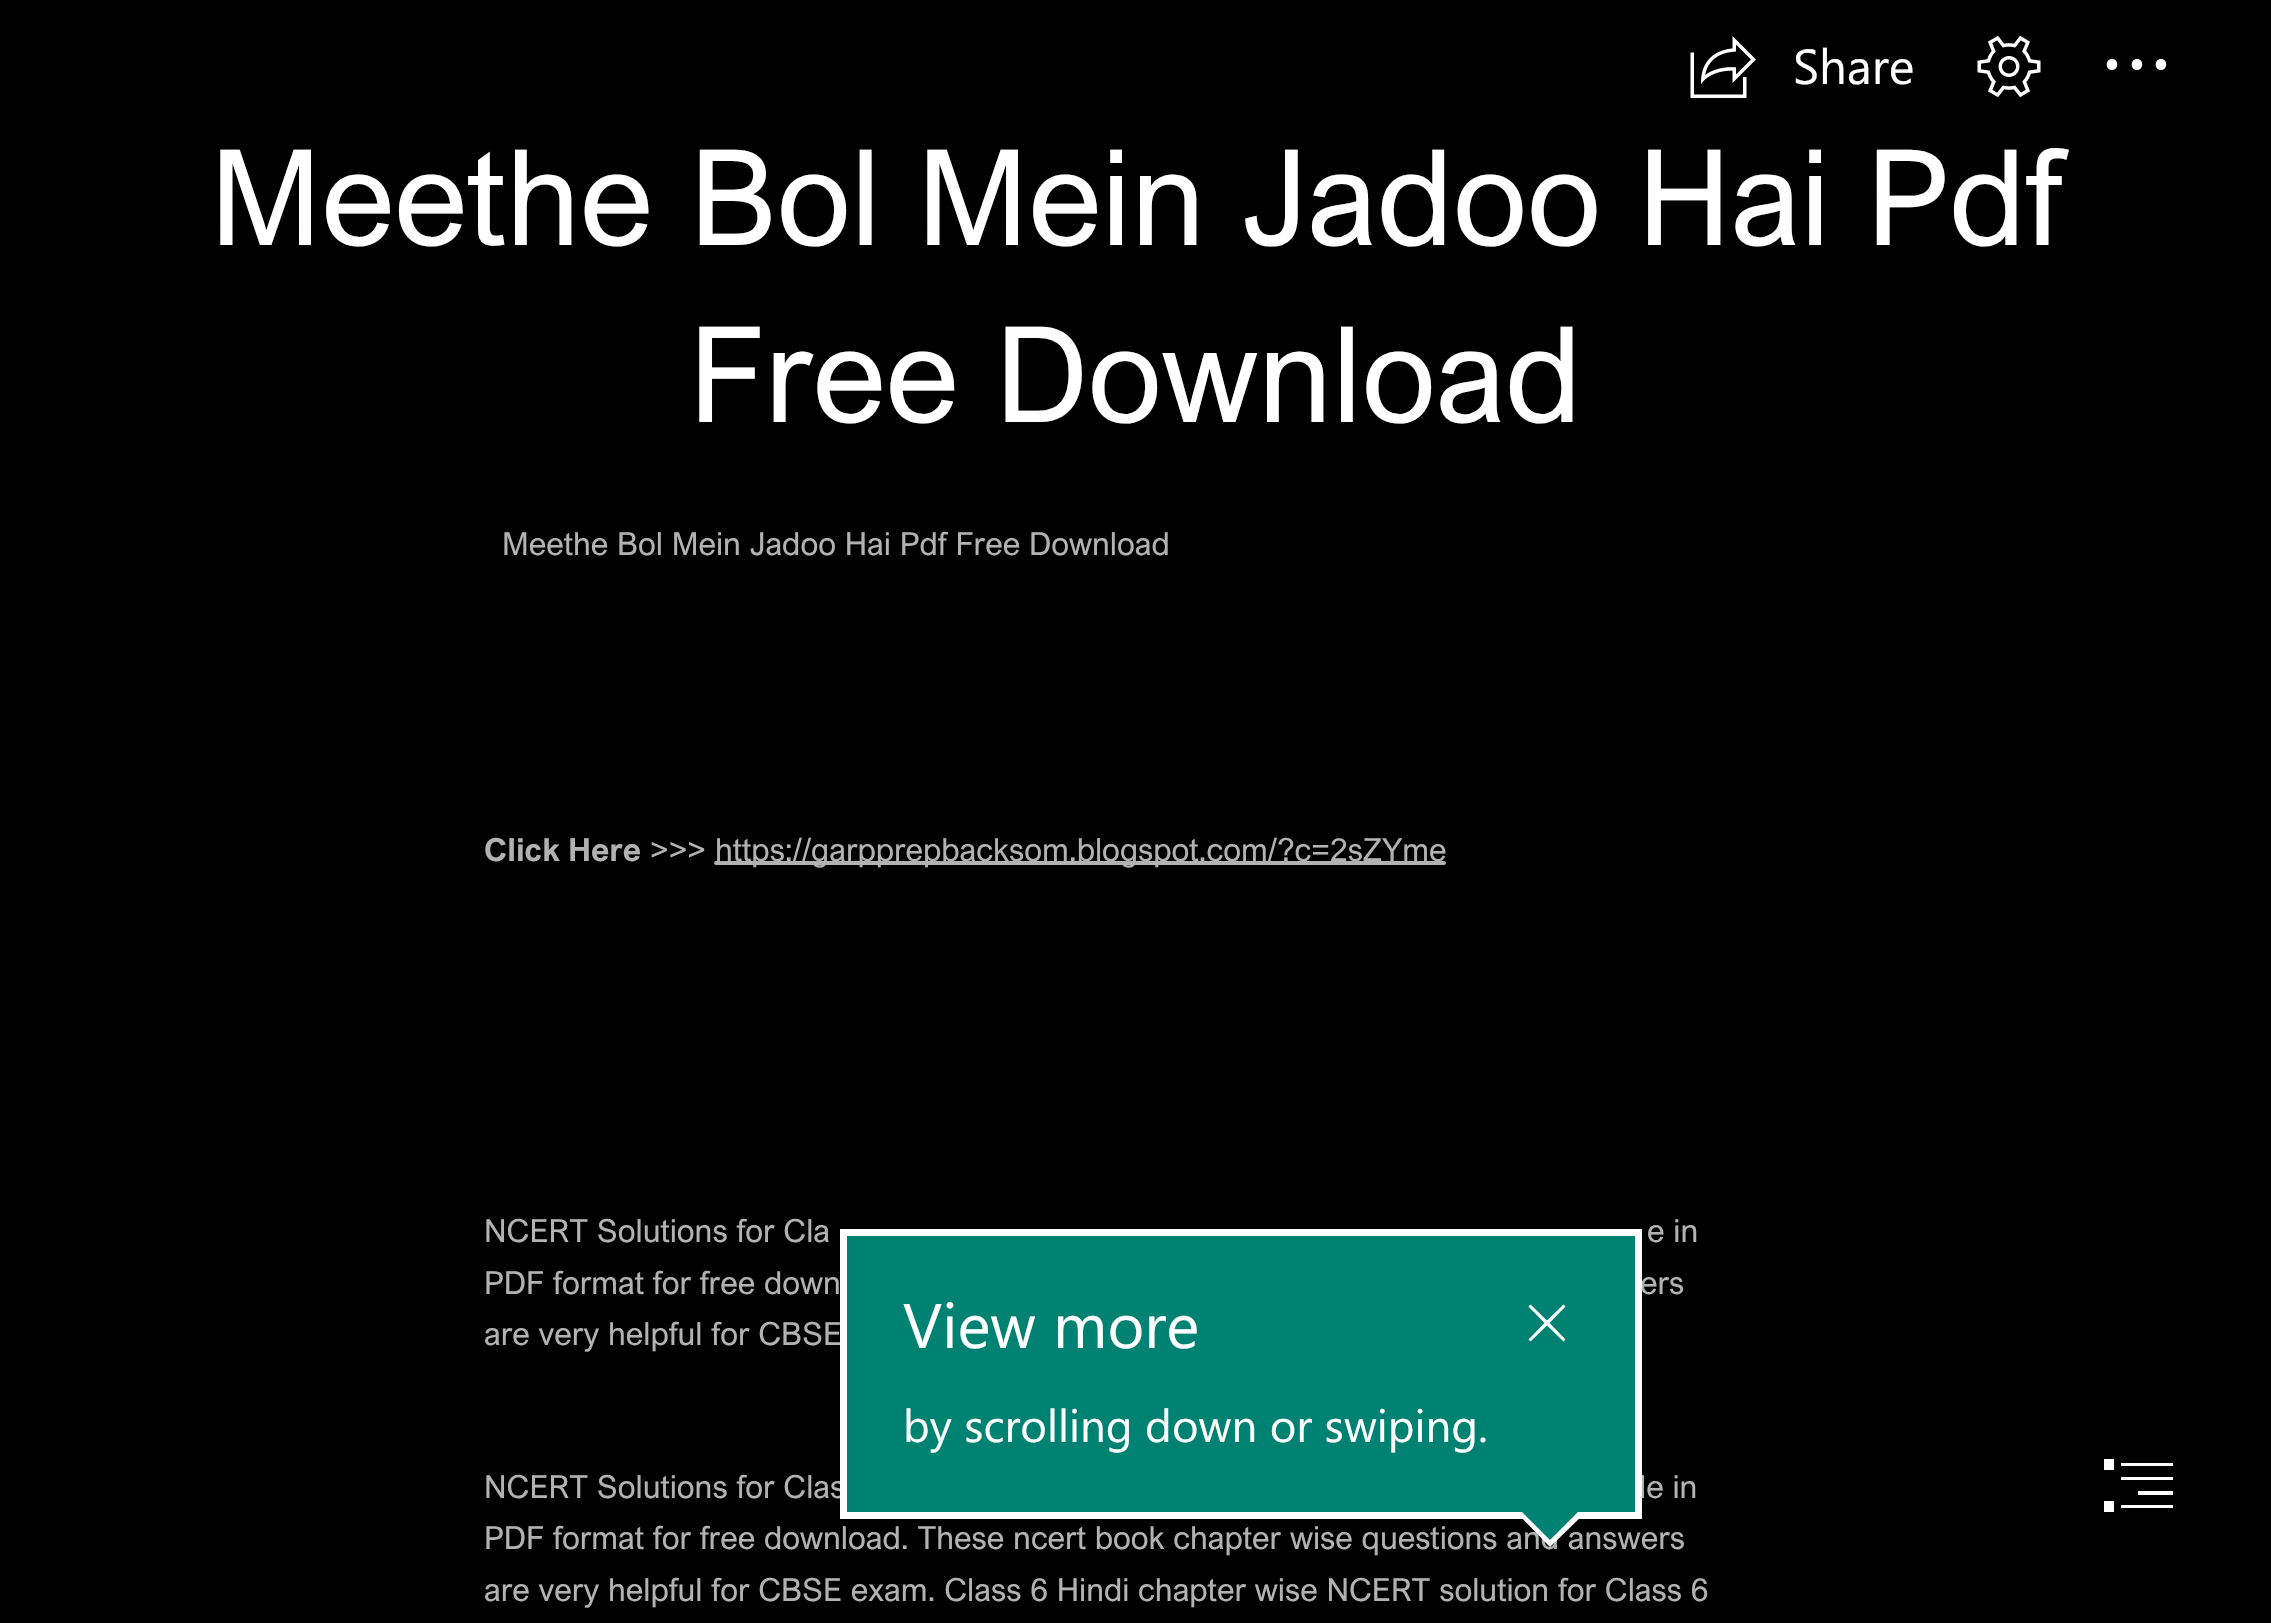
void draw(SkCanvas* canvas) {
	SkPaint paint;
	paint.setAntiAlias(true);
	auto svgPath = [&](const char* data, bool evenOdd = false) {
		SkPath result = *SkParsePath::FromSVGString(data);
		if (evenOdd) result.setFillType(SkPathFillType::kEvenOdd);
		return result;
	};
	canvas->clear(0xff000000);
	canvas->drawImageRect(SkImages::DeferredFromEncodedData(SkData::MakeFromFileName("img1.png")), SkRect::MakeXYWH(1690, 36, 66, 62), SkSamplingOptions());
	SkFont f1(fontMgr->matchFamilyStyle("Segoe UI", SkFontStyle::Normal()), 49);
	f1.setSubpixel(true);
	paint.setColor(0xffffffff);
	canvas->drawString("Share", 1793, 84, f1, paint);
	canvas->drawImageRect(SkImages::DeferredFromEncodedData(SkData::MakeFromFileName("img2.png")), SkRect::MakeXYWH(1977, 35, 64, 63), SkSamplingOptions());
	canvas->drawPath(svgPath("M2112 59C2119 59 2119 70 2112 70C2105 70 2105 59 2112 59ZM2137 59C2144 59 2144 70 2137 70C2130 70 2130 59 2137 59ZM2161 59C2168 59 2168 70 2161 70C2154 70 2154 59 2161 59Z"), paint);
	SkFont f2(fontMgr->matchFamilyStyle("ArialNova", SkFontStyle::Normal()), 133.1);
	f2.setSubpixel(true);
	canvas->drawString("Meethe Bol Mein Jadoo Hai Pdf", 210, 245, f2, paint);
	canvas->drawString("Free Download", 689, 422, f2, paint);
	SkFont f3(fontMgr->matchFamilyStyle("ArialNova", SkFontStyle::Normal()), 31.95);
	f3.setSubpixel(true);
	paint.setColor(0xffb2b2b2);
	canvas->drawString("Meethe Bol Mein Jadoo Hai Pdf Free Download", 502, 555, f3, paint);
	SkFont f4(fontMgr->matchFamilyStyle("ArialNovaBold", SkFontStyle::Bold()), 31.95);
	f4.setSubpixel(true);
	canvas->drawString("Click Here", 484, 861, f4, paint);
	canvas->drawString(">>>", 650, 861, f3, paint);
	canvas->drawRoundRect(SkRect::MakeXYWH(714, 861, 732, 4), 2, 2, paint);
	canvas->drawString("https://garpprepbacksom.blogspot.com/?c=2sZYme", 715, 861, f3, paint);
	canvas->drawString("NCERT Solutions for Cla", 484, 1242, f3, paint);
	canvas->drawString("e in", 1647, 1242, f3, paint);
	canvas->drawString("PDF format for free down", 484, 1294, f3, paint);
	canvas->drawString("ers", 1640, 1294, f3, paint);
	canvas->drawString("are very helpful for CBSE", 484, 1345, f3, paint);
	canvas->drawString("NCERT Solutions for Clas", 484, 1498, f3, paint);
	canvas->drawString("le in", 1639, 1498, f3, paint);
	canvas->drawString("PDF format for free download. These ncert book chapter wise questions and answers", 484, 1549, f3, paint);
	canvas->drawString("are very helpful for CBSE exam. Class 6 Hindi chapter wise NCERT solution for Class 6", 484, 1601, f3, paint);
	paint.setColor(0xff008272);
	canvas->drawRect(SkRect::MakeXYWH(843.5, 1232.5, 795, 283), paint);
	paint.setStroke(true);
	paint.setStrokeWidth(7);
	paint.setColor(0xffffffff);
	canvas->drawRect(SkRect::MakeXYWH(843.5, 1232.5, 795, 283), paint);
	SkFont f5(fontMgr->matchFamilyStyle("Segoe UI", SkFontStyle::Normal()), 63);
	f5.setSubpixel(true);
	paint.setStroke(false);
	canvas->drawString("View more", 903, 1348, f5, paint);
	SkFont f6(fontMgr->matchFamilyStyle("Segoe UI", SkFontStyle::Normal()), 45.5);
	f6.setSubpixel(true);
	canvas->drawString("by scrolling down or swiping.", 903, 1442, f6, paint);
	canvas->drawPath(svgPath("M1565.5 1306.5L1549.5 1323L1565.5 1339.5L1563.5 1341.5L1547 1325.5L1530.5 1341.5L1528.5 1339.5L1544.5 1323L1528.5 1306.5L1530.5 1304.5L1547 1320.5L1563.5 1304.5Z"), paint);
	canvas->drawPath(svgPath("M1516 1512H1586L1550 1547Z"), paint);
	paint.setColor(0xff008272);
	canvas->drawPath(svgPath("M1522 1512H1578L1550 1540Z"), paint);
	paint.setColor(0xffffffff);
	canvas->drawPath(svgPath("M2173 1466H2121V1463H2173ZM2114 1470H2104V1459H2114ZM2114 1512H2104V1501H2114ZM2173 1480H2121V1477H2173ZM2173 1508H2121V1505H2173ZM2173 1491H2138V1495H2173Z"), paint);
}
